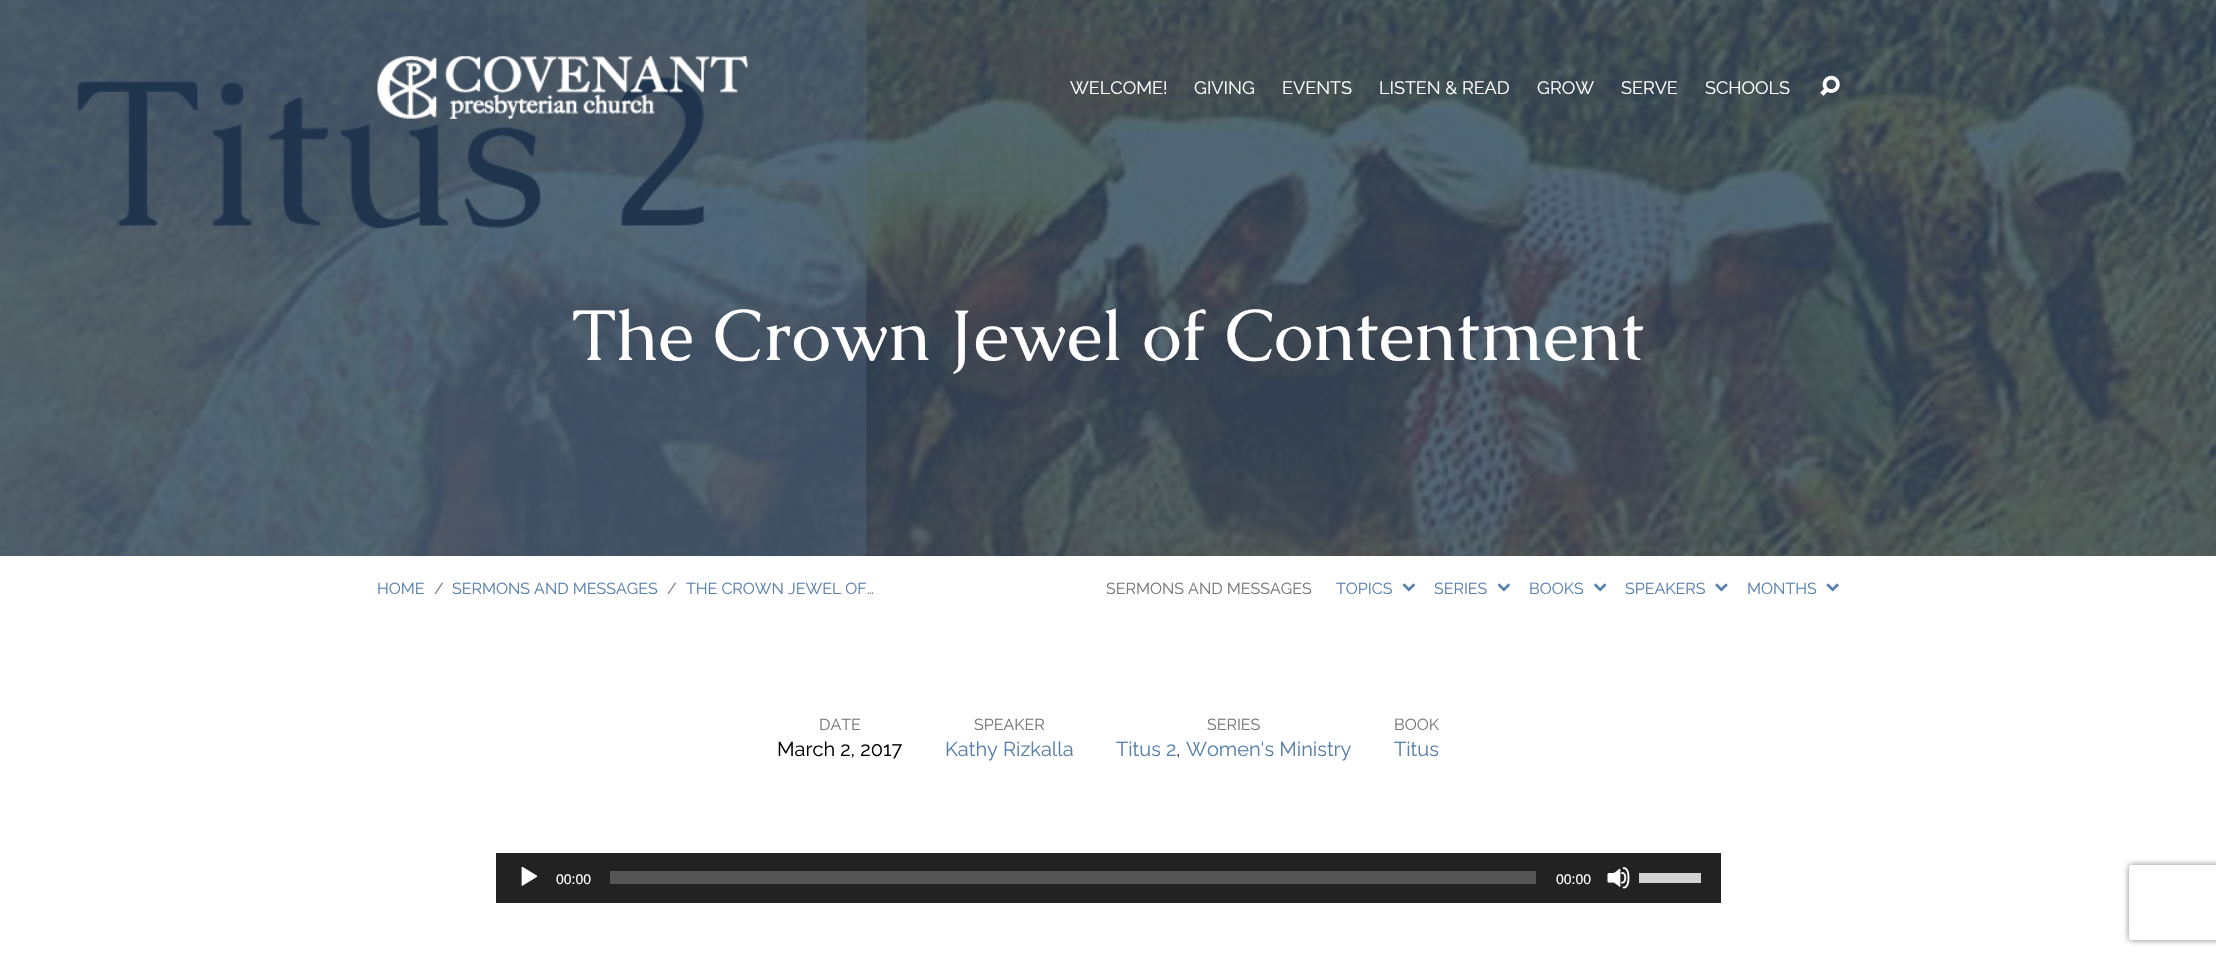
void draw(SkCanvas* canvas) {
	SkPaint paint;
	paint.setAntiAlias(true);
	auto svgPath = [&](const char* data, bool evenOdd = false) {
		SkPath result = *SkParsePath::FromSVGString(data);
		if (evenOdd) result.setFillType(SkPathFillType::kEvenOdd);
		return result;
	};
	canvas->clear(0xffffffff);
	paint.setColor(0xff274260);
	canvas->drawRect(SkRect::MakeXYWH(0, 0, 2216, 556), paint);
	canvas->drawImageRect(SkImages::DeferredFromEncodedData(SkData::MakeFromFileName("img3.png")), SkRect::MakeXYWH(0, 0, 2216, 557), SkSamplingOptions());
	canvas->drawImageRect(SkImages::DeferredFromEncodedData(SkData::MakeFromFileName("img1.png")), SkRect::MakeXYWH(377, 56, 371, 63), SkSamplingOptions());
	SkFont f1(fontMgr->matchFamilyStyle("Raleway", SkFontStyle::Normal()), 18);
	f1.setSubpixel(true);
	paint.setColor(0xffffffff);
	canvas->drawString("WELCOME!", 1070, 94, f1, paint);
	canvas->drawString("GIVING", 1194, 94, f1, paint);
	canvas->drawString("EVENTS", 1282, 94, f1, paint);
	canvas->drawString("LISTEN & READ", 1379, 94, f1, paint);
	canvas->drawString("GROW", 1537, 94, f1, paint);
	canvas->drawString("SERVE", 1621, 94, f1, paint);
	canvas->drawString("SCHOOLS", 1705, 94, f1, paint);
	canvas->drawImageRect(SkImages::DeferredFromEncodedData(SkData::MakeFromFileName("img2.png")), SkRect::MakeXYWH(1820, 75, 20, 21), SkSamplingOptions());
	SkFont f2(fontMgr->matchFamilyStyle("Caudex", SkFontStyle::Normal()), 72);
	f2.setSubpixel(true);
	canvas->drawString("The Crown Jewel of Contentment", 572, 360, f2, paint);
	SkFont f3(fontMgr->matchFamilyStyle("Raleway", SkFontStyle::Normal()), 16);
	f3.setSubpixel(true);
	paint.setColor(0xff5880ad);
	canvas->drawString("HOME", 377, 594, f3, paint);
	paint.setColor(0xff777777);
	canvas->drawString("/", 434, 594, f3, paint);
	paint.setColor(0xff5880ad);
	canvas->drawString("SERMONS AND MESSAGES", 452, 594, f3, paint);
	paint.setColor(0xff777777);
	canvas->drawString("/", 667, 594, f3, paint);
	paint.setColor(0xff5880ad);
	canvas->drawString("THE CROWN JEWEL OF…", 686, 594, f3, paint);
	paint.setColor(0xff777777);
	canvas->drawString("SERMONS AND MESSAGES", 1106, 594, f3, paint);
	paint.setColor(0xff5880ad);
	canvas->drawString("TOPICS", 1336, 594, f3, paint);
	canvas->drawImageRect(SkImages::DeferredFromEncodedData(SkData::MakeFromFileName("img4.png")), SkRect::MakeXYWH(1402, 583, 14, 9), SkSamplingOptions());
	canvas->drawString("SERIES", 1434, 594, f3, paint);
	canvas->drawImageRect(SkImages::DeferredFromEncodedData(SkData::MakeFromFileName("img4.png")), SkRect::MakeXYWH(1497, 583, 14, 9), SkSamplingOptions());
	canvas->drawString("BOOKS", 1529, 594, f3, paint);
	canvas->drawImageRect(SkImages::DeferredFromEncodedData(SkData::MakeFromFileName("img5.png")), SkRect::MakeXYWH(1593, 583, 14, 9), SkSamplingOptions());
	canvas->drawString("SPEAKERS", 1625, 594, f3, paint);
	canvas->drawImageRect(SkImages::DeferredFromEncodedData(SkData::MakeFromFileName("img6.png")), SkRect::MakeXYWH(1715, 583, 13, 9), SkSamplingOptions());
	canvas->drawString("MONTHS", 1747, 594, f3, paint);
	canvas->drawImageRect(SkImages::DeferredFromEncodedData(SkData::MakeFromFileName("img7.png")), SkRect::MakeXYWH(1826, 583, 13, 9), SkSamplingOptions());
	paint.setColor(0xff777777);
	canvas->drawString("DATE", 819, 730, f3, paint);
	SkFont f4(fontMgr->matchFamilyStyle("Raleway", SkFontStyle::Normal()), 20);
	f4.setSubpixel(true);
	paint.setColor(0xff000000);
	canvas->drawString("March 2, 2017", 777, 756, f4, paint);
	paint.setColor(0xff777777);
	canvas->drawString("SPEAKER", 974, 730, f3, paint);
	paint.setColor(0xff5880ad);
	canvas->drawString("Kathy Rizkalla", 945, 756, f4, paint);
	paint.setColor(0xff777777);
	canvas->drawString("SERIES", 1207, 730, f3, paint);
	paint.setColor(0xff5880ad);
	canvas->drawString("Titus 2", 1116, 756, f4, paint);
	paint.setColor(0xff444444);
	canvas->drawString(",", 1176, 756, f4, paint);
	paint.setColor(0xff5880ad);
	canvas->drawString("Women's Ministry", 1186, 756, f4, paint);
	paint.setColor(0xff777777);
	canvas->drawString("BOOK", 1394, 730, f3, paint);
	paint.setColor(0xff5880ad);
	canvas->drawString("Titus", 1394, 756, f4, paint);
	paint.setColor(0xff222222);
	canvas->drawRect(SkRect::MakeXYWH(496, 853, 1225, 50), paint);
	canvas->drawImageRect(SkImages::DeferredFromEncodedData(SkData::MakeFromFileName("img8.png")), SkRect::MakeXYWH(521, 866, 17, 20), SkSamplingOptions());
	SkFont f5(fontMgr->matchFamilyStyle("Liberation Sans", SkFontStyle::Normal()), 14);
	f5.setSubpixel(true);
	paint.setColor(0xffffffff);
	canvas->drawString("00:00", 556, 884, f5, paint);
	paint.setColor(0xff555555);
	canvas->drawRect(SkRect::MakeXYWH(610, 871, 926, 13), paint);
	paint.setColor(0xffffffff);
	canvas->drawString("00:00", 1556, 884, f5, paint);
	canvas->drawImageRect(SkImages::DeferredFromEncodedData(SkData::MakeFromFileName("img9.png")), SkRect::MakeXYWH(1607, 867, 23, 22), SkSamplingOptions());
	paint.setColor(0xffd2d2d2);
	canvas->drawRect(SkRect::MakeXYWH(1639, 873, 62, 10), paint);
	canvas->save();
	canvas->clipPath(svgPath("M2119 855H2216V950H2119ZM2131.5 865H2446.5C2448 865 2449 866 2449 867.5V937.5C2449 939 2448 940 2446.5 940H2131.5C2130 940 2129 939 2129 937.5V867.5C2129 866 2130 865 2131.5 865Z", true), true);
	paint.setColor(0xff808080);
	paint.setMaskFilter(SkMaskFilter::MakeBlur(kNormal_SkBlurStyle, 3));
	canvas->drawRoundRect(SkRect::MakeXYWH(2129, 865, 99, 75), 2.5, 2.5, paint);
	paint.setMaskFilter(nullptr);
	canvas->restore();
}
